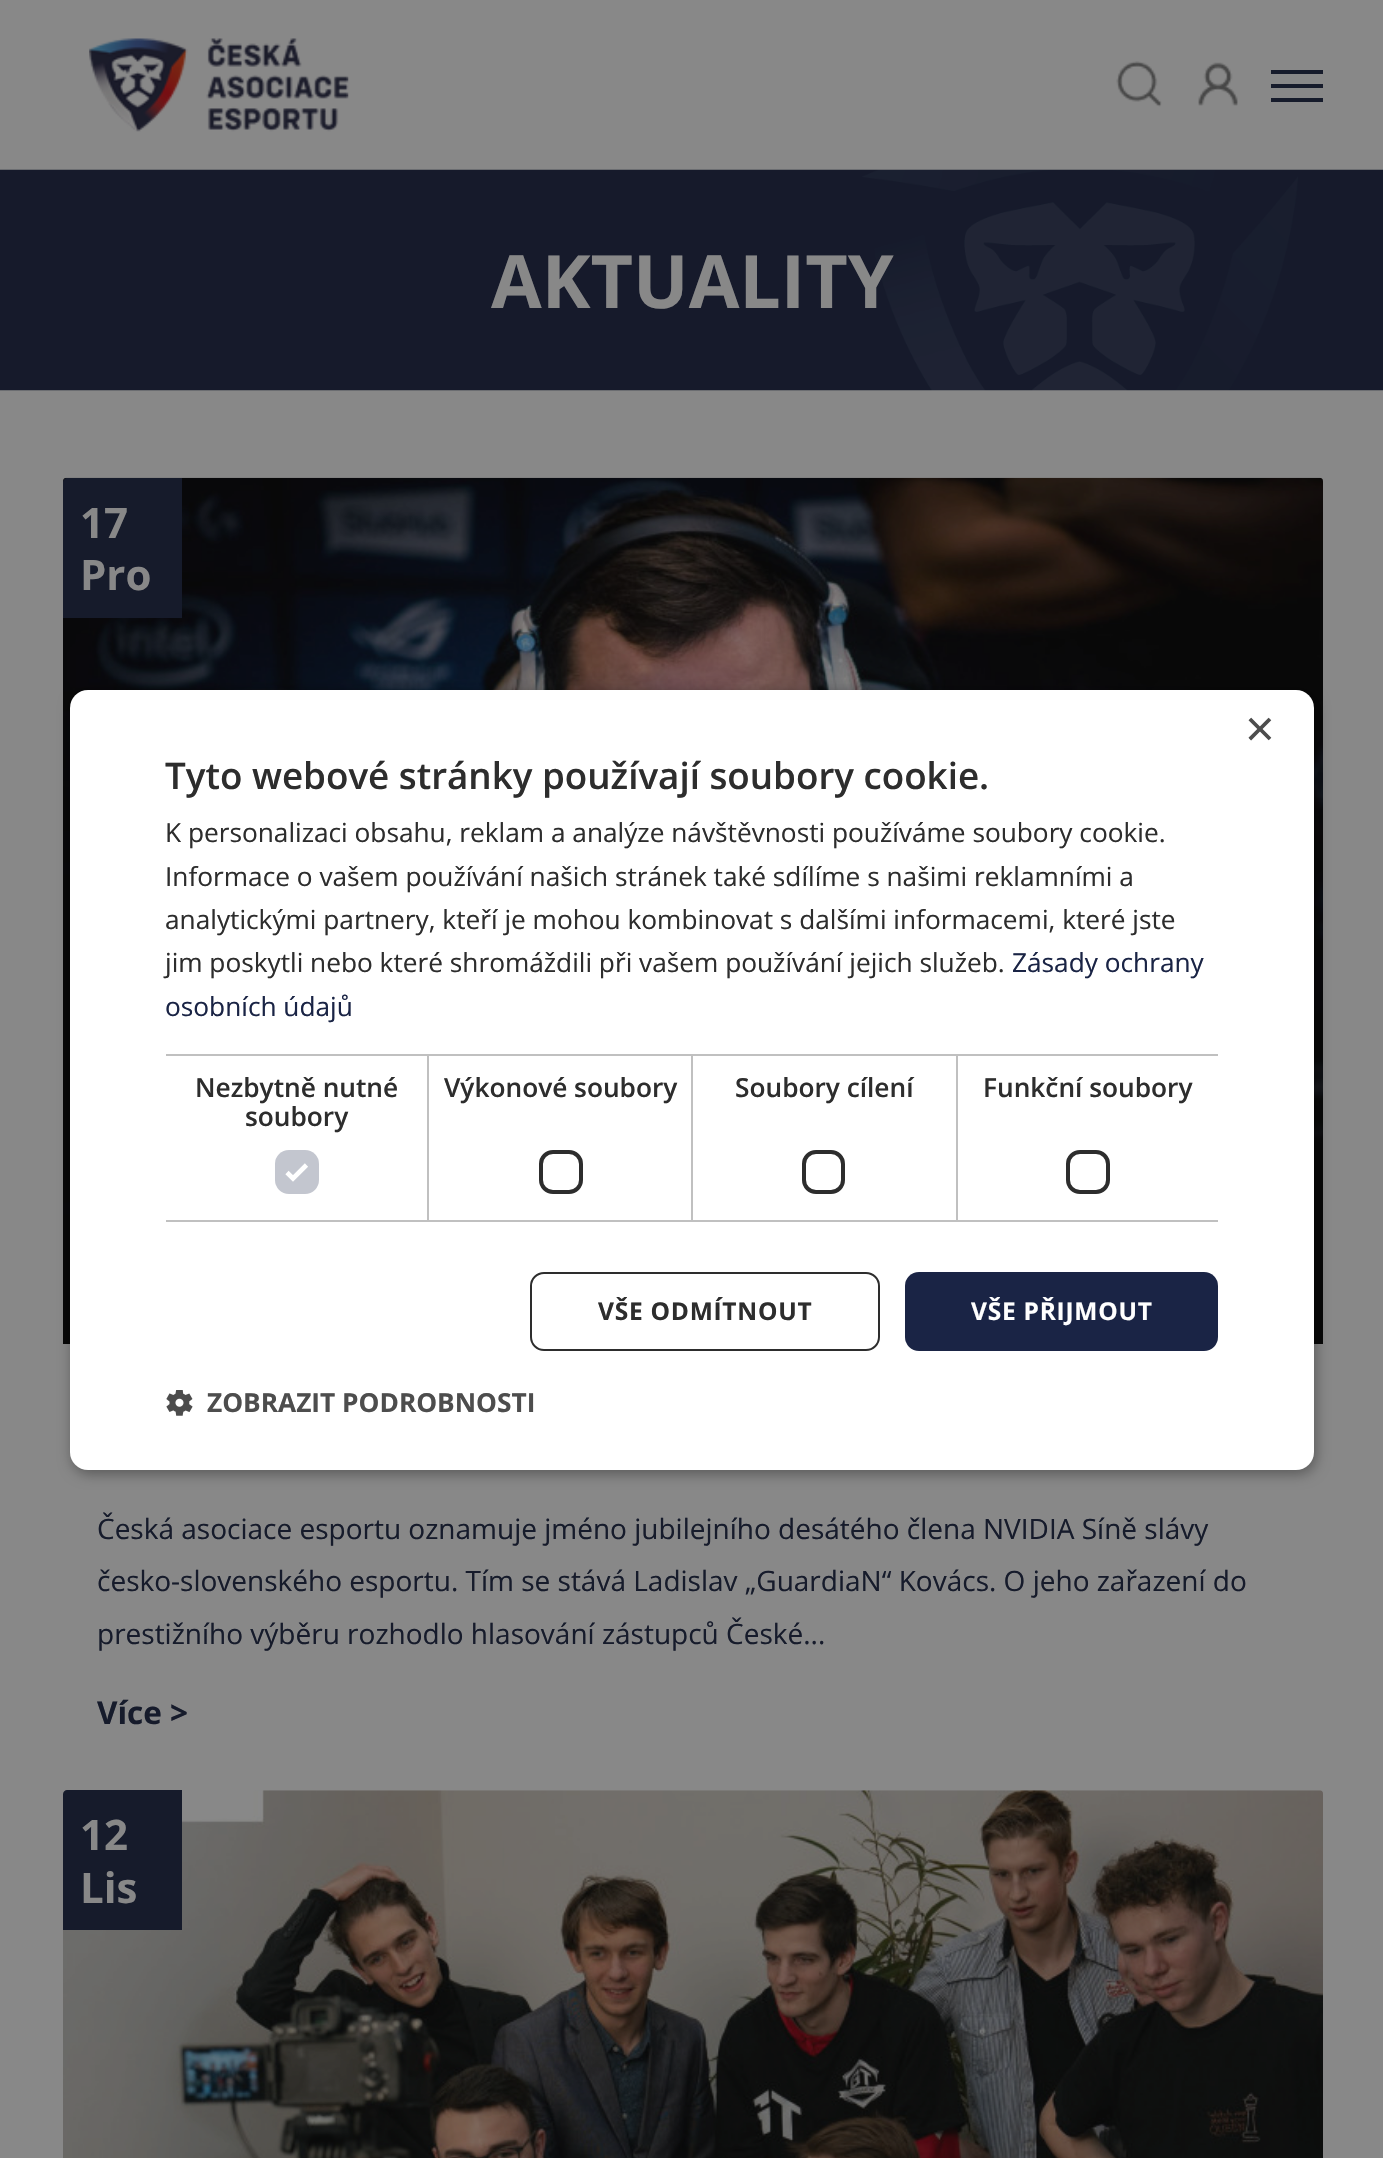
void draw(SkCanvas* canvas) {
	SkPaint paint;
	paint.setAntiAlias(true);
	auto spacedText = [&](const char* s, float x, float y, const SkFont& font, const SkPaint& ink, float letter, float word) {
		std::vector<SkGlyphID> glyphs(font.countText(s, strlen(s), SkTextEncoding::kUTF8));
		std::vector<float> xs(glyphs.size());
		font.textToGlyphs(s, strlen(s), SkTextEncoding::kUTF8, glyphs);
		font.getXPos(glyphs, xs, x);
		float extra = 0;
		for (size_t i = 0; i < glyphs.size(); i++) {
			xs[i] += extra;
			extra += letter + word * (glyphs[i] == font.unicharToGlyph(' '));
		}
		canvas->drawTextBlob(SkTextBlob::MakeFromPosHGlyphs(glyphs, xs, y, font), 0, 0, ink);
	};
	auto svgPath = [&](const char* data, bool evenOdd = false) {
		SkPath result = *SkParsePath::FromSVGString(data);
		if (evenOdd) result.setFillType(SkPathFillType::kEvenOdd);
		return result;
	};
	canvas->clear(0xff888888);
	canvas->drawImageRect(SkImages::DeferredFromEncodedData(SkData::MakeFromFileName("img1.png")), SkRect::MakeXYWH(89, 38, 260, 94), SkSamplingOptions());
	canvas->drawImageRect(SkImages::DeferredFromEncodedData(SkData::MakeFromFileName("img2.png")), SkRect::MakeXYWH(1116, 61, 46, 46), SkSamplingOptions());
	canvas->drawImageRect(SkImages::DeferredFromEncodedData(SkData::MakeFromFileName("img3.png")), SkRect::MakeXYWH(1198, 62, 40, 44), SkSamplingOptions());
	paint.setColor(0xff161b2b);
	canvas->drawRect(SkRect::MakeXYWH(1271, 70, 52, 4), paint);
	canvas->drawRect(SkRect::MakeXYWH(1271, 84, 52, 4), paint);
	canvas->drawRect(SkRect::MakeXYWH(1271, 98, 52, 4), paint);
	canvas->drawImageRect(SkImages::DeferredFromEncodedData(SkData::MakeFromFileName("img4.png")), SkRect::MakeXYWH(0, 169, 1383, 222), SkSamplingOptions());
	SkFont f1(fontMgr->matchFamilyStyle("Open Sans", SkFontStyle::Bold()), 73.5);
	f1.setSubpixel(true);
	paint.setColor(0xff888888);
	canvas->drawString("AKTUALITY", 491, 308, f1, paint);
	canvas->drawImageRect(SkImages::DeferredFromEncodedData(SkData::MakeFromFileName("img5.png")), SkRect::MakeXYWH(63, 477, 1260, 867), SkSamplingOptions());
	paint.setColor(0xff161b2b);
	canvas->drawPath(svgPath("M67 478H182V618H63V482C63 480 65 478 67 478Z"), paint);
	SkFont f2(fontMgr->matchFamilyStyle("Open Sans", SkFontStyle::Bold()), 42);
	f2.setSubpixel(true);
	paint.setColor(0xff888888);
	canvas->drawString("17", 80, 538, f2, paint);
	canvas->drawString("Pro", 80, 590, f2, paint);
	SkFont f3(fontMgr->matchFamilyStyle("Open Sans", SkFontStyle::Normal()), 28);
	f3.setSubpixel(true);
	paint.setColor(0xff161b2b);
	canvas->drawString("Česká asociace esportu oznamuje jméno jubilejního desátého člena NVIDIA Síně slávy", 97, 1539, f3, paint);
	canvas->drawString("česko-slovenského esportu. Tím se stává Ladislav „GuardiaN“ Kovács. O jeho zařazení do", 97, 1591, f3, paint);
	canvas->drawString("prestižního výběru rozhodlo hlasování zástupců České...", 97, 1644, f3, paint);
	SkFont f4(fontMgr->matchFamilyStyle("Open Sans", SkFontStyle::Bold()), 31.5);
	f4.setSubpixel(true);
	canvas->drawString("Více >", 97, 1724, f4, paint);
	canvas->drawImageRect(SkImages::DeferredFromEncodedData(SkData::MakeFromFileName("img6.png")), SkRect::MakeXYWH(63, 1790, 1260, 368), SkSamplingOptions());
	canvas->drawPath(svgPath("M67 1790H182V1930H63V1794C63 1792 65 1790 67 1790Z"), paint);
	paint.setColor(0xff888888);
	canvas->drawString("12", 80, 1850, f2, paint);
	canvas->drawString("Lis", 80, 1903, f2, paint);
	paint.setColor(0x59000000);
	paint.setMaskFilter(SkMaskFilter::MakeBlur(kNormal_SkBlurStyle, 7));
	canvas->drawRoundRect(SkRect::MakeXYWH(72, 693, 1244, 781), 18, 18, paint);
	paint.setMaskFilter(nullptr);
	paint.setColor(0xffffffff);
	canvas->drawRoundRect(SkRect::MakeXYWH(70, 690, 1244, 780), 18, 18, paint);
	SkFont f5(fontMgr->matchFamilyStyle("Liberation Sans", SkFontStyle::Normal()), 51);
	f5.setSubpixel(true);
	paint.setColor(0xff4d4d4d);
	canvas->drawString("×", 1245, 746, f5, paint);
	SkFont f6(fontMgr->matchFamilyStyle("Open Sans", SkFontStyle(600, SkFontStyle::kNormal_Width, SkFontStyle::kUpright_Slant)), 36.75);
	f6.setSubpixel(true);
	paint.setColor(0xff2d2d2d);
	canvas->drawString("Tyto webové stránky používají soubory cookie.", 165, 789, f6, paint);
	SkFont f7(fontMgr->matchFamilyStyle("Open Sans", SkFontStyle::Normal()), 26.25);
	f7.setSubpixel(true);
	canvas->drawString("K personalizaci obsahu, reklam a analýze návštěvnosti používáme soubory cookie.", 165, 842, f7, paint);
	canvas->drawString("Informace o vašem používání našich stránek také sdílíme s našimi reklamními a", 165, 886, f7, paint);
	canvas->drawString("analytickými partnery, kteří je mohou kombinovat s dalšími informacemi, které jste", 165, 929, f7, paint);
	canvas->drawString("jim poskytli nebo které shromáždili při vašem používání jejich služeb.", 165, 972, f7, paint);
	paint.setColor(0xff1a2445);
	canvas->drawString("Zásady ochrany", 1012, 972, f7, paint);
	canvas->drawString("osobních údajů", 165, 1016, f7, paint);
	paint.setColor(0xffc0c0c0);
	canvas->drawRect(SkRect::MakeXYWH(166, 1054, 791, 2), paint);
	canvas->drawRect(SkRect::MakeXYWH(427, 1054, 2, 168), paint);
	canvas->drawRect(SkRect::MakeXYWH(166, 1220, 263, 2), paint);
	SkFont f8(fontMgr->matchFamilyStyle("Open Sans", SkFontStyle(600, SkFontStyle::kNormal_Width, SkFontStyle::kUpright_Slant)), 26.25);
	f8.setSubpixel(true);
	paint.setColor(0xff2d2d2d);
	canvas->drawString("Nezbytně nutné", 195, 1097, f8, paint);
	canvas->drawString("soubory", 245, 1126, f8, paint);
	paint.setColor(0xffc3c6cf);
	canvas->drawRoundRect(SkRect::MakeXYWH(275, 1150, 44, 44), 14, 14, paint);
	paint.setStroke(true);
	paint.setStrokeWidth(4.6);
	paint.setColor(0xffffffff);
	canvas->drawPath(svgPath("M287 1172.5L293 1178.5L306.5 1165"), paint);
	paint.setStroke(false);
	paint.setColor(0xffc0c0c0);
	canvas->drawRect(SkRect::MakeXYWH(691, 1054, 2, 168), paint);
	canvas->drawRect(SkRect::MakeXYWH(429, 1220, 264, 2), paint);
	paint.setColor(0xff2d2d2d);
	canvas->drawString("Výkonové soubory", 444, 1097, f8, paint);
	paint.setStroke(true);
	paint.setStrokeWidth(4);
	canvas->drawRoundRect(SkRect::MakeXYWH(541, 1152, 40, 40), 12, 12, paint);
	paint.setStroke(false);
	paint.setColor(0xffc0c0c0);
	canvas->drawRect(SkRect::MakeXYWH(956, 1054, 2, 168), paint);
	canvas->drawRect(SkRect::MakeXYWH(693, 1220, 525, 2), paint);
	paint.setColor(0xff2d2d2d);
	canvas->drawString("Soubory cílení", 735, 1097, f8, paint);
	paint.setStroke(true);
	canvas->drawRoundRect(SkRect::MakeXYWH(804, 1152, 39, 40), 12, 12, paint);
	paint.setStroke(false);
	paint.setColor(0xffc0c0c0);
	canvas->drawRect(SkRect::MakeXYWH(957, 1054, 261, 2), paint);
	paint.setColor(0xff2d2d2d);
	canvas->drawString("Funkční soubory", 983, 1097, f8, paint);
	paint.setStroke(true);
	canvas->drawRoundRect(SkRect::MakeXYWH(1068, 1152, 40, 40), 12, 12, paint);
	paint.setStrokeWidth(2);
	canvas->drawRoundRect(SkRect::MakeXYWH(531, 1273, 348, 77), 13, 13, paint);
	SkFont f9(fontMgr->matchFamilyStyle("Open Sans", SkFontStyle::Bold()), 24.5);
	f9.setSubpixel(true);
	paint.setStroke(false);
	spacedText("VŠE ODMÍTNOUT", 598, 1320, f9, paint, 0.75, 0);
	paint.setColor(0xff1a2445);
	canvas->drawRoundRect(SkRect::MakeXYWH(905, 1272, 313, 79), 14, 14, paint);
	paint.setColor(0xffffffff);
	spacedText("VŠE PŘIJMOUT", 971, 1320, f9, paint, 0.75, 0);
	canvas->drawImageRect(SkImages::DeferredFromEncodedData(SkData::MakeFromFileName("img7.png")), SkRect::MakeXYWH(166, 1390, 27, 26), SkSamplingOptions());
	SkFont f10(fontMgr->matchFamilyStyle("Open Sans", SkFontStyle::Bold()), 26.25);
	f10.setSubpixel(true);
	paint.setColor(0xff4d4d4d);
	canvas->drawString("ZOBRAZIT PODROBNOSTI", 207, 1412, f10, paint);
}
